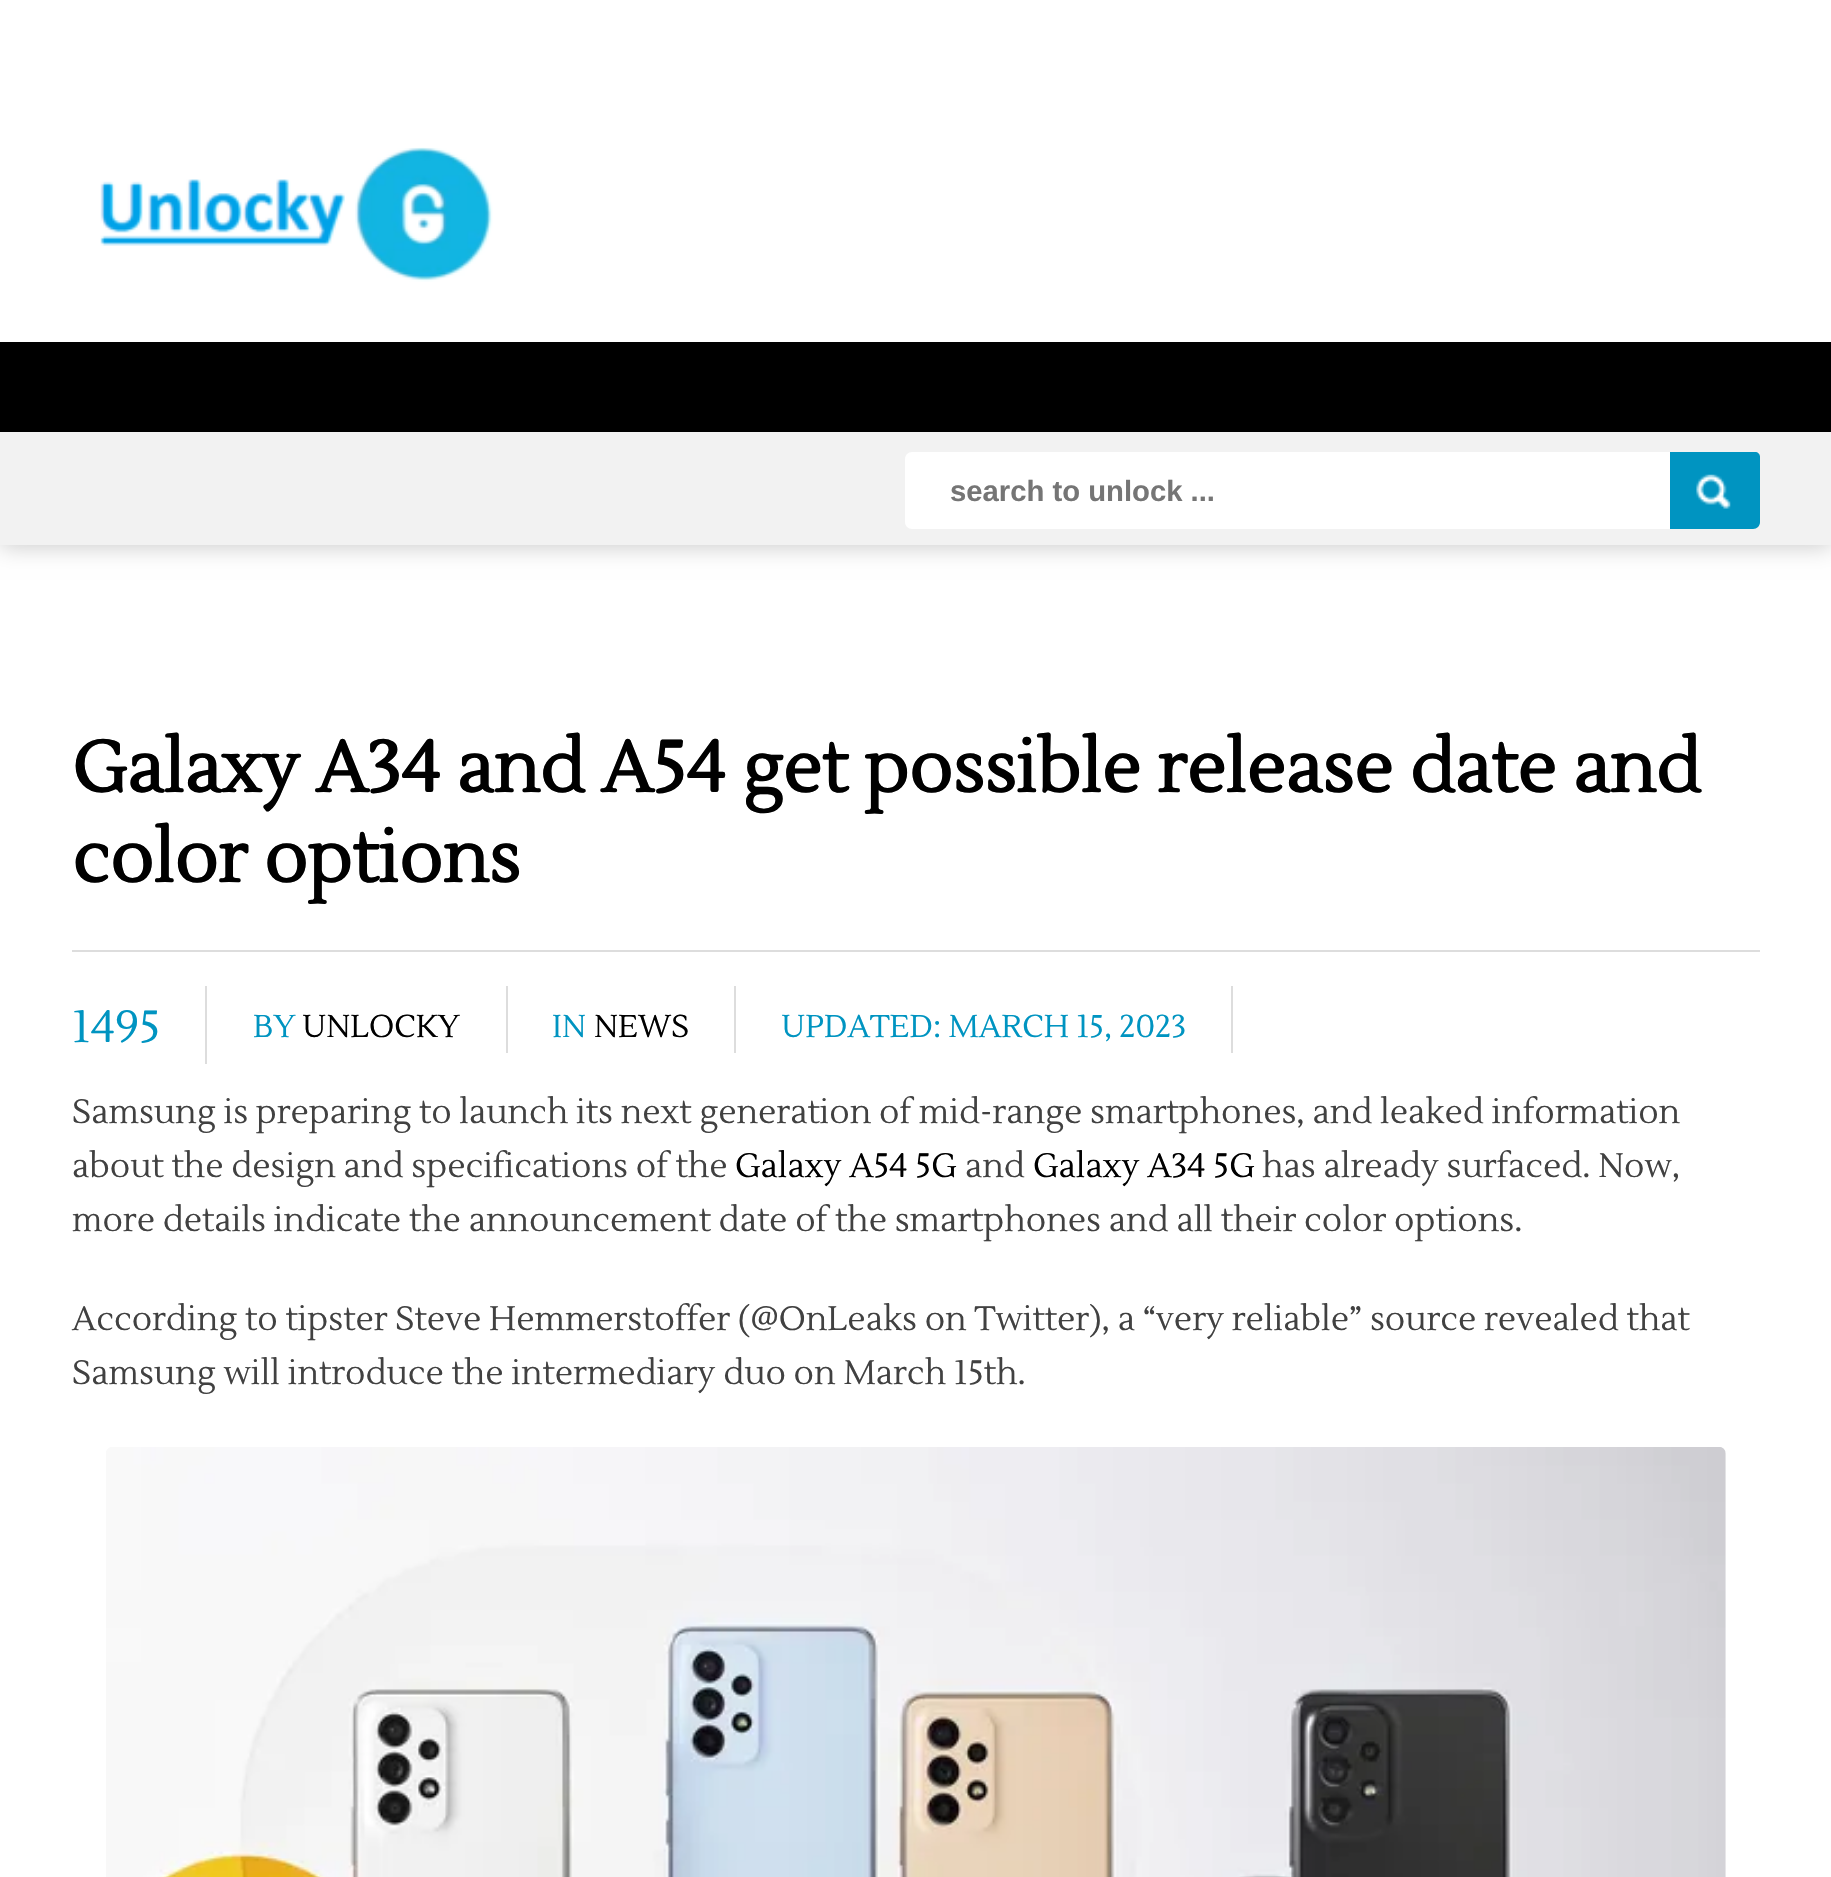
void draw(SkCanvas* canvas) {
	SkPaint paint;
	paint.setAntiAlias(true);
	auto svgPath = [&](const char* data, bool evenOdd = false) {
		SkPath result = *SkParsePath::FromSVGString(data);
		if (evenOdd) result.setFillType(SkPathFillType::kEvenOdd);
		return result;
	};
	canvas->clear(0xffffffff);
	canvas->drawImageRect(SkImages::DeferredFromEncodedData(SkData::MakeFromFileName("img1.png")), SkRect::MakeXYWH(100, 147, 393, 135), SkSamplingOptions());
	paint.setColor(0xff000000);
	canvas->drawRect(SkRect::MakeXYWH(0, 342, 1831, 90), paint);
	paint.setColor(0x33000000);
	paint.setMaskFilter(SkMaskFilter::MakeBlur(kNormal_SkBlurStyle, 11));
	canvas->drawRect(SkRect::MakeXYWH(0, 434, 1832, 113), paint);
	paint.setMaskFilter(nullptr);
	paint.setColor(0xfff2f2f2);
	canvas->drawRect(SkRect::MakeXYWH(0, 432, 1831, 113), paint);
	paint.setColor(0xffffffff);
	canvas->drawPath(svgPath("M912 452H1670V529H912C908 529 905 526 905 522V459C905 455 908 452 912 452Z"), paint);
	SkFont f1(fontMgr->matchFamilyStyle("Liberation Sans", SkFontStyle::Bold()), 29.25);
	f1.setSubpixel(true);
	paint.setColor(0xff757575);
	canvas->drawString("search to unlock ...", 950, 501, f1, paint);
	paint.setColor(0xff0094c1);
	canvas->drawPath(svgPath("M1670 452H1755C1758 452 1760 454 1760 457V522C1760 526 1757 529 1753 529H1670Z"), paint);
	canvas->drawImageRect(SkImages::DeferredFromEncodedData(SkData::MakeFromFileName("img2.png")), SkRect::MakeXYWH(1696, 474, 35, 35), SkSamplingOptions());
	paint.setColor(0xffdddddd);
	canvas->drawRect(SkRect::MakeXYWH(72, 950, 1688, 2), paint);
	SkFont f2(fontMgr->matchFamilyStyle("Lustria", SkFontStyle::Bold()), 72);
	f2.setSubpixel(true);
	paint.setColor(0xff000000);
	canvas->drawString("Galaxy A34 and A54 get possible release date and", 72, 792, f2, paint);
	canvas->drawString("color options", 72, 882, f2, paint);
	paint.setColor(0xffdddddd);
	canvas->drawRect(SkRect::MakeXYWH(205, 986, 2, 78), paint);
	SkFont f3(fontMgr->matchFamilyStyle("Lustria", SkFontStyle::Normal()), 45);
	f3.setSubpixel(true);
	paint.setColor(0xff0094c1);
	canvas->drawString("1495", 72, 1042, f3, paint);
	paint.setColor(0xffdddddd);
	canvas->drawRect(SkRect::MakeXYWH(506, 986, 2, 67), paint);
	SkFont f4(fontMgr->matchFamilyStyle("Lustria", SkFontStyle::Normal()), 31.5);
	f4.setSubpixel(true);
	paint.setColor(0xff0094c1);
	canvas->drawString("BY", 253, 1037, f4, paint);
	paint.setColor(0xff000000);
	canvas->drawString("UNLOCKY", 302, 1037, f4, paint);
	paint.setColor(0xffdddddd);
	canvas->drawRect(SkRect::MakeXYWH(734, 986, 2, 67), paint);
	paint.setColor(0xff0094c1);
	canvas->drawString("IN", 552, 1037, f4, paint);
	paint.setColor(0xff000000);
	canvas->drawString("NEWS", 594, 1037, f4, paint);
	paint.setColor(0xffdddddd);
	canvas->drawRect(SkRect::MakeXYWH(1231, 986, 2, 67), paint);
	paint.setColor(0xff0094c1);
	canvas->drawString("UPDATED: MARCH 15, 2023", 781, 1037, f4, paint);
	SkFont f5(fontMgr->matchFamilyStyle("Lustria", SkFontStyle::Normal()), 33.75);
	f5.setSubpixel(true);
	paint.setColor(0xff414141);
	canvas->drawString("Samsung is preparing to launch its next generation of mid-range smartphones, and leaked information", 72, 1123, f5, paint);
	canvas->drawString("about the design and specifications of the", 72, 1177, f5, paint);
	paint.setColor(0xff000000);
	canvas->drawString("Galaxy A54 5G", 735, 1177, f5, paint);
	paint.setColor(0xff414141);
	canvas->drawString("and", 965, 1177, f5, paint);
	paint.setColor(0xff000000);
	canvas->drawString("Galaxy A34 5G", 1033, 1177, f5, paint);
	paint.setColor(0xff414141);
	canvas->drawString("has already surfaced. Now,", 1262, 1177, f5, paint);
	canvas->drawString("more details indicate the announcement date of the smartphones and all their color options.", 72, 1231, f5, paint);
	canvas->drawString("According to tipster Steve Hemmerstoffer (@OnLeaks on Twitter), a “very reliable” source revealed that", 72, 1330, f5, paint);
	canvas->drawString("Samsung will introduce the intermediary duo on March 15th.", 72, 1384, f5, paint);
	canvas->drawImageRect(SkImages::DeferredFromEncodedData(SkData::MakeFromFileName("img3.png")), SkRect::MakeXYWH(106, 1447, 1620, 430), SkSamplingOptions());
}
